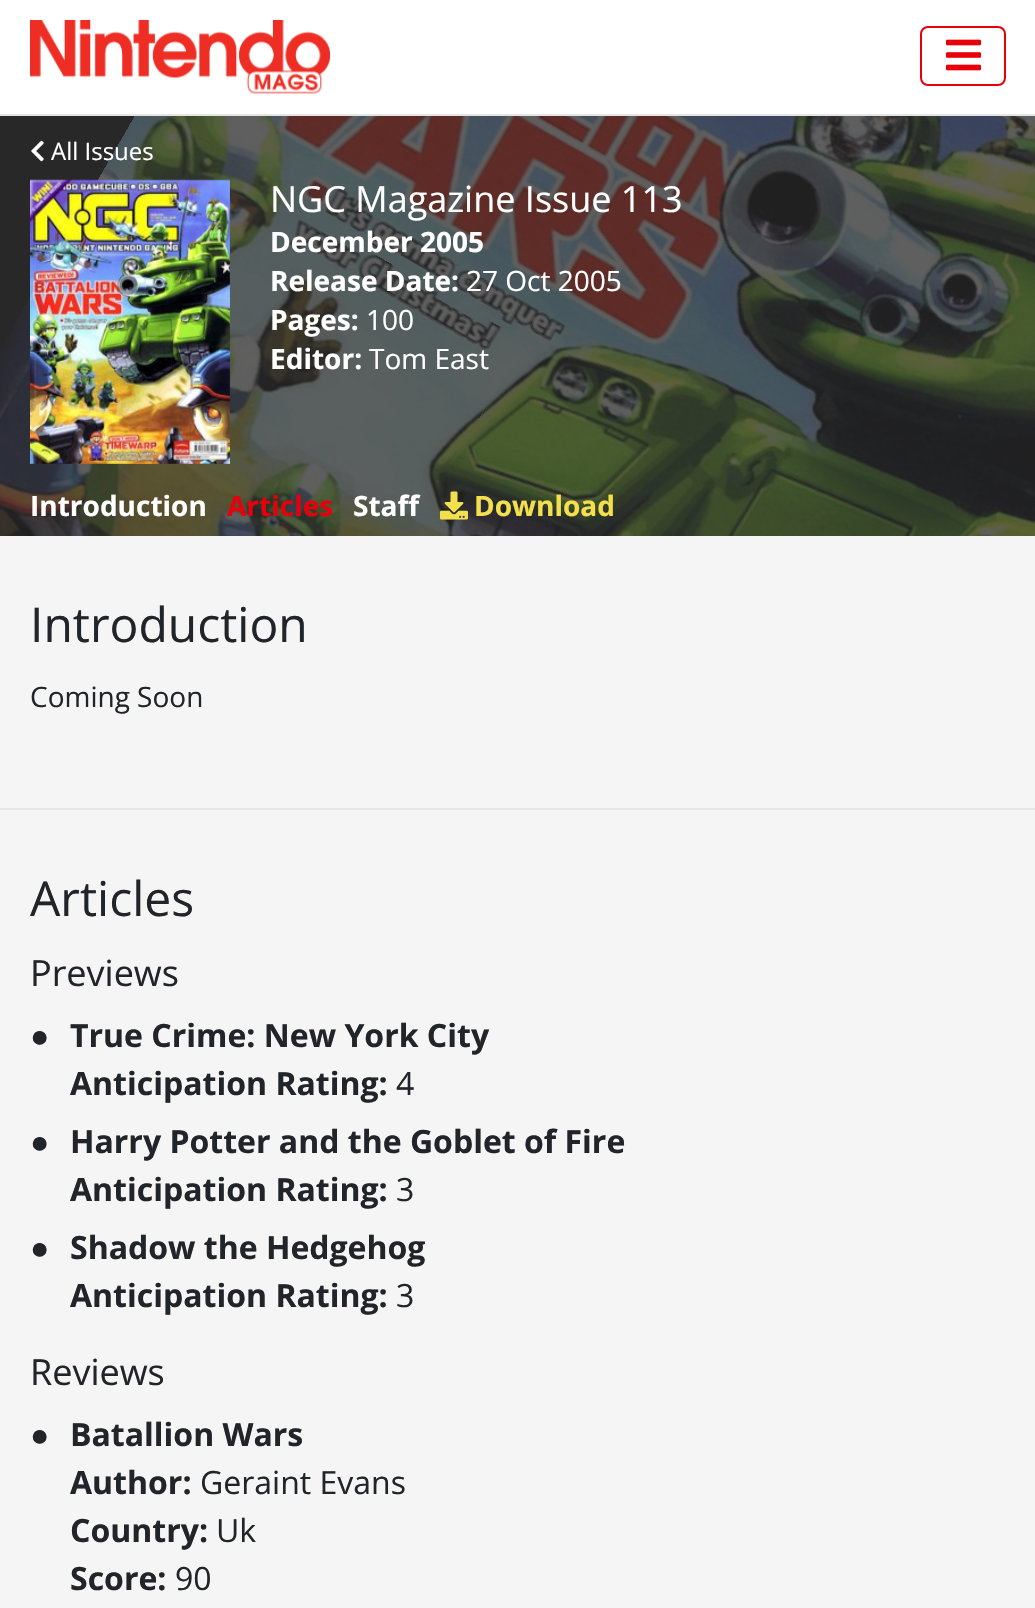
void draw(SkCanvas* canvas) {
	SkPaint paint;
	paint.setAntiAlias(true);
	canvas->clear(0xff282828);
	paint.setColor(0xffffffff);
	canvas->drawRect(SkRect::MakeXYWH(0, 0, 1035, 114), paint);
	paint.setColor(0xffe5e5e5);
	canvas->drawRect(SkRect::MakeXYWH(0, 114, 1035, 2), paint);
	canvas->drawImageRect(SkImages::DeferredFromEncodedData(SkData::MakeFromFileName("img1.png")), SkRect::MakeXYWH(30, 20, 300, 74), SkSamplingOptions());
	paint.setStroke(true);
	paint.setStrokeWidth(2);
	paint.setColor(0xffe70009);
	canvas->drawRoundRect(SkRect::MakeXYWH(921, 27, 84, 58), 7, 7, paint);
	canvas->drawImageRect(SkImages::DeferredFromEncodedData(SkData::MakeFromFileName("img2.png")), SkRect::MakeXYWH(946, 39, 35, 32), SkSamplingOptions());
	canvas->drawImageRect(SkImages::DeferredFromEncodedData(SkData::MakeFromFileName("img3.png")), SkRect::MakeXYWH(0, 116, 1035, 420), SkSamplingOptions());
	canvas->drawImageRect(SkImages::DeferredFromEncodedData(SkData::MakeFromFileName("img4.png")), SkRect::MakeXYWH(31, 140, 13, 22), SkSamplingOptions());
	SkFont f1(fontMgr->matchFamilyStyle("Open Sans", SkFontStyle::Normal()), 24);
	f1.setSubpixel(true);
	paint.setStroke(false);
	paint.setColor(0xffffffff);
	canvas->drawString("All Issues", 51, 160, f1, paint);
	canvas->drawImageRect(SkImages::DeferredFromEncodedData(SkData::MakeFromFileName("img5.png")), SkRect::MakeXYWH(30, 179, 200, 285), SkSamplingOptions());
	SkFont f2(fontMgr->matchFamilyStyle("Open Sans", SkFontStyle::Normal()), 36);
	f2.setSubpixel(true);
	canvas->drawString("NGC Magazine Issue 113", 270, 212, f2, paint);
	SkFont f3(fontMgr->matchFamilyStyle("Open Sans", SkFontStyle::Bold()), 28);
	f3.setSubpixel(true);
	canvas->drawString("December 2005", 270, 252, f3, paint);
	canvas->drawString("Release Date:", 270, 291, f3, paint);
	SkFont f4(fontMgr->matchFamilyStyle("Open Sans", SkFontStyle::Normal()), 28);
	f4.setSubpixel(true);
	canvas->drawString("27 Oct 2005", 466, 291, f4, paint);
	canvas->drawString("Pages:", 270, 330, f3, paint);
	canvas->drawString("100", 366, 330, f4, paint);
	canvas->drawString("Editor:", 270, 369, f3, paint);
	canvas->drawString("Tom East", 369, 369, f4, paint);
	canvas->drawString("Introduction", 30, 516, f3, paint);
	paint.setColor(0xffe70009);
	canvas->drawString("Articles", 227, 516, f3, paint);
	paint.setColor(0xffffffff);
	canvas->drawString("Staff", 353, 516, f3, paint);
	canvas->drawImageRect(SkImages::DeferredFromEncodedData(SkData::MakeFromFileName("img6.png")), SkRect::MakeXYWH(440, 491, 28, 29), SkSamplingOptions());
	paint.setColor(0xfff4e04c);
	canvas->drawString("Download", 474, 516, f3, paint);
	paint.setColor(0xfff5f5f5);
	canvas->drawRect(SkRect::MakeXYWH(0, 536, 1035, 272), paint);
	paint.setColor(0xffe5e5e5);
	canvas->drawRect(SkRect::MakeXYWH(0, 808, 1035, 2), paint);
	SkFont f5(fontMgr->matchFamilyStyle("Open Sans", SkFontStyle::Normal()), 48);
	f5.setSubpixel(true);
	paint.setColor(0xff212529);
	canvas->drawString("Introduction", 30, 642, f5, paint);
	canvas->drawString("Coming Soon", 30, 707, f4, paint);
	paint.setColor(0xfff5f5f5);
	canvas->drawRect(SkRect::MakeXYWH(0, 810, 1035, 798), paint);
	paint.setColor(0xff212529);
	canvas->drawString("Articles", 30, 916, f5, paint);
	canvas->drawString("Previews", 30, 986, f2, paint);
	SkFont f6(fontMgr->matchFamilyStyle("Liberation Sans", SkFontStyle::Normal()), 32);
	f6.setSubpixel(true);
	canvas->drawString("●", 30, 1047, f6, paint);
	SkFont f7(fontMgr->matchFamilyStyle("Open Sans", SkFontStyle::Bold()), 32);
	f7.setSubpixel(true);
	canvas->drawString("True Crime: New York City", 70, 1047, f7, paint);
	canvas->drawString("Anticipation Rating:", 70, 1095, f7, paint);
	SkFont f8(fontMgr->matchFamilyStyle("Open Sans", SkFontStyle::Normal()), 32);
	f8.setSubpixel(true);
	canvas->drawString("4", 396, 1095, f8, paint);
	canvas->drawString("●", 30, 1153, f6, paint);
	canvas->drawString("Harry Potter and the Goblet of Fire", 70, 1153, f7, paint);
	canvas->drawString("Anticipation Rating:", 70, 1201, f7, paint);
	canvas->drawString("3", 396, 1201, f8, paint);
	canvas->drawString("●", 30, 1259, f6, paint);
	canvas->drawString("Shadow the Hedgehog", 70, 1259, f7, paint);
	canvas->drawString("Anticipation Rating:", 70, 1307, f7, paint);
	canvas->drawString("3", 396, 1307, f8, paint);
	canvas->drawString("Reviews", 30, 1385, f2, paint);
	canvas->drawString("●", 30, 1446, f6, paint);
	canvas->drawString("Batallion Wars", 70, 1446, f7, paint);
	canvas->drawString("Author:", 70, 1494, f7, paint);
	canvas->drawString("Geraint Evans", 200, 1494, f8, paint);
	canvas->drawString("Country:", 70, 1542, f7, paint);
	canvas->drawString("Uk", 216, 1542, f8, paint);
	canvas->drawString("Score:", 70, 1590, f7, paint);
	canvas->drawString("90", 175, 1590, f8, paint);
}
